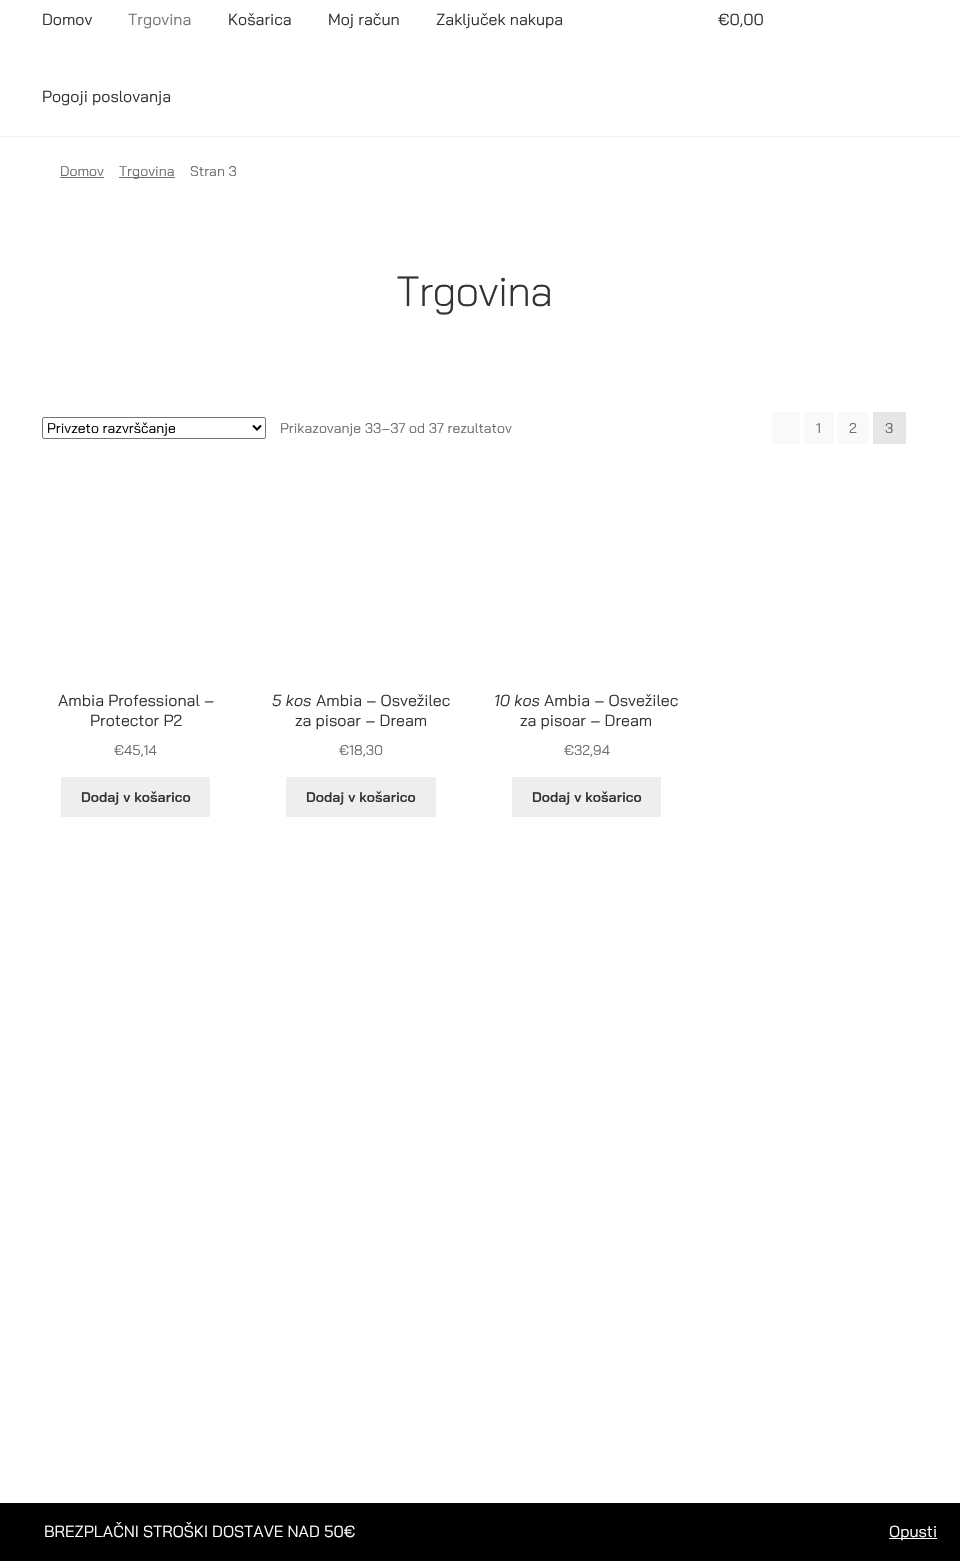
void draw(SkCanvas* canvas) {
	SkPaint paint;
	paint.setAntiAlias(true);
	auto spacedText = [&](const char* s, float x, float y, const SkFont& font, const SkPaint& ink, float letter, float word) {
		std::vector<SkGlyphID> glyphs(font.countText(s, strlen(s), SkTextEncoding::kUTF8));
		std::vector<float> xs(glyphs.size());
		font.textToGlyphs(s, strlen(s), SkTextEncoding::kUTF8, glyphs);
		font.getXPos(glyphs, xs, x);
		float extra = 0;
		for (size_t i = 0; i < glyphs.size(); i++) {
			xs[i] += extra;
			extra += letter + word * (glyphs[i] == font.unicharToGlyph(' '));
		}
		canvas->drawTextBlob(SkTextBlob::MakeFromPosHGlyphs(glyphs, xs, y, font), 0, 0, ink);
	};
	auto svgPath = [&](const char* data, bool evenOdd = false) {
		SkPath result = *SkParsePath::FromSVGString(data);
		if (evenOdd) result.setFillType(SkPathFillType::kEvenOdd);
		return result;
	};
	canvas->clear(0xffffffff);
	paint.setColor(0xfff0f0f0);
	canvas->drawRect(SkRect::MakeXYWH(0, 136, 960, 1), paint);
	SkFont f1(fontMgr->matchFamilyStyle("Bai Jamjuree", SkFontStyle::Normal()), 16);
	f1.setSubpixel(true);
	paint.setColor(0xff333333);
	canvas->drawString("Domov", 42, 25, f1, paint);
	paint.setColor(0xff747474);
	canvas->drawString("Trgovina", 128, 25, f1, paint);
	paint.setColor(0xff333333);
	canvas->drawString("Košarica", 228, 25, f1, paint);
	canvas->drawString("Moj račun", 328, 25, f1, paint);
	canvas->drawString("Zaključek nakupa", 436, 25, f1, paint);
	canvas->drawString("Pogoji poslovanja", 42, 102, f1, paint);
	canvas->drawString("€0,00", 718, 25, f1, paint);
	SkFont f2(fontMgr->matchFamilyStyle("Bai Jamjuree", SkFontStyle::Normal()), 14);
	f2.setSubpixel(true);
	paint.setColor(0xff6d6d6d);
	canvas->drawString("Domov", 60, 176, f2, paint);
	paint.setColor(0xff727272);
	canvas->drawRect(SkRect::MakeXYWH(60, 177, 44, 1), paint);
	canvas->drawRect(SkRect::MakeXYWH(119, 177, 56, 1), paint);
	paint.setColor(0xff6d6d6d);
	canvas->drawString("Trgovina", 119, 176, f2, paint);
	canvas->drawString("Stran 3", 190, 176, f2, paint);
	SkFont f3(fontMgr->matchFamilyStyle("Bai Jamjuree", SkFontStyle(300, SkFontStyle::kNormal_Width, SkFontStyle::kUpright_Slant)), 42);
	f3.setSubpixel(true);
	paint.setColor(0xff333333);
	spacedText("Trgovina", 396, 306, f3, paint, -1, 0);
	paint.setStroke(true);
	paint.setStrokeWidth(1);
	paint.setColor(0xff767676);
	canvas->drawRoundRect(SkRect::MakeXYWH(42.5, 417.5, 223, 21), 1.5, 1.5, paint);
	paint.setStrokeWidth(2);
	paint.setColor(0xff000000);
	canvas->drawPath(svgPath("M253 425.5L257 429.5L261 425.5"), paint);
	paint.setStroke(false);
	canvas->drawString("Privzeto razvrščanje", 47, 433, f2, paint);
	paint.setColor(0xff6d6d6d);
	canvas->drawString("Prikazovanje 33–37 od 37 rezultatov", 280, 433, f2, paint);
	paint.setColor(0xfff9f9f9);
	canvas->drawRect(SkRect::MakeXYWH(772, 412, 28, 32), paint);
	canvas->drawRect(SkRect::MakeXYWH(804, 412, 30, 32), paint);
	paint.setColor(0xff6d6d6d);
	canvas->drawString("1", 816, 433, f2, paint);
	paint.setColor(0xfff9f9f9);
	canvas->drawRect(SkRect::MakeXYWH(837, 412, 32, 32), paint);
	paint.setColor(0xff6d6d6d);
	canvas->drawString("2", 849, 433, f2, paint);
	paint.setColor(0xffe6e6e6);
	canvas->drawRect(SkRect::MakeXYWH(873, 412, 33, 32), paint);
	paint.setColor(0xff636363);
	canvas->drawString("3", 885, 433, f2, paint);
	paint.setColor(0xff333333);
	canvas->drawString("Ambia Professional –", 58, 706, f1, paint);
	canvas->drawString("Protector P2", 90, 726, f1, paint);
	paint.setColor(0xff6d6d6d);
	canvas->drawString("€45,14", 114, 755, f2, paint);
	paint.setColor(0xffeeeeee);
	canvas->drawRect(SkRect::MakeXYWH(61, 777, 149, 40), paint);
	SkFont f4(fontMgr->matchFamilyStyle("Bai Jamjuree", SkFontStyle(600, SkFontStyle::kNormal_Width, SkFontStyle::kUpright_Slant)), 14);
	f4.setSubpixel(true);
	paint.setColor(0xff333333);
	canvas->drawString("Dodaj v košarico", 81, 802, f4, paint);
	SkFont f5(fontMgr->matchFamilyStyle("Bai Jamjuree", SkFontStyle::Italic()), 16);
	f5.setSubpixel(true);
	canvas->drawString("5 kos", 272, 706, f5, paint);
	canvas->drawString("Ambia – Osvežilec", 316, 706, f1, paint);
	canvas->drawString("za pisoar – Dream", 295, 726, f1, paint);
	paint.setColor(0xff6d6d6d);
	canvas->drawString("€18,30", 339, 755, f2, paint);
	paint.setColor(0xffeeeeee);
	canvas->drawRect(SkRect::MakeXYWH(286, 777, 150, 40), paint);
	paint.setColor(0xff333333);
	canvas->drawString("Dodaj v košarico", 306, 802, f4, paint);
	canvas->drawString("10 kos", 494, 706, f5, paint);
	canvas->drawString("Ambia – Osvežilec", 544, 706, f1, paint);
	canvas->drawString("za pisoar – Dream", 520, 726, f1, paint);
	paint.setColor(0xff6d6d6d);
	canvas->drawString("€32,94", 564, 755, f2, paint);
	paint.setColor(0xffeeeeee);
	canvas->drawRect(SkRect::MakeXYWH(512, 777, 149, 40), paint);
	paint.setColor(0xff333333);
	canvas->drawString("Dodaj v košarico", 532, 802, f4, paint);
	paint.setColor(0xff000000);
	canvas->drawRect(SkRect::MakeXYWH(0, 1503, 960, 58), paint);
	paint.setColor(0xffffffff);
	canvas->drawString("BREZPLAČNI STROŠKI DOSTAVE NAD 50€", 44, 1537, f1, paint);
	canvas->drawRect(SkRect::MakeXYWH(889, 1538, 48, 1), paint);
	canvas->drawString("Opusti", 889, 1537, f1, paint);
}
